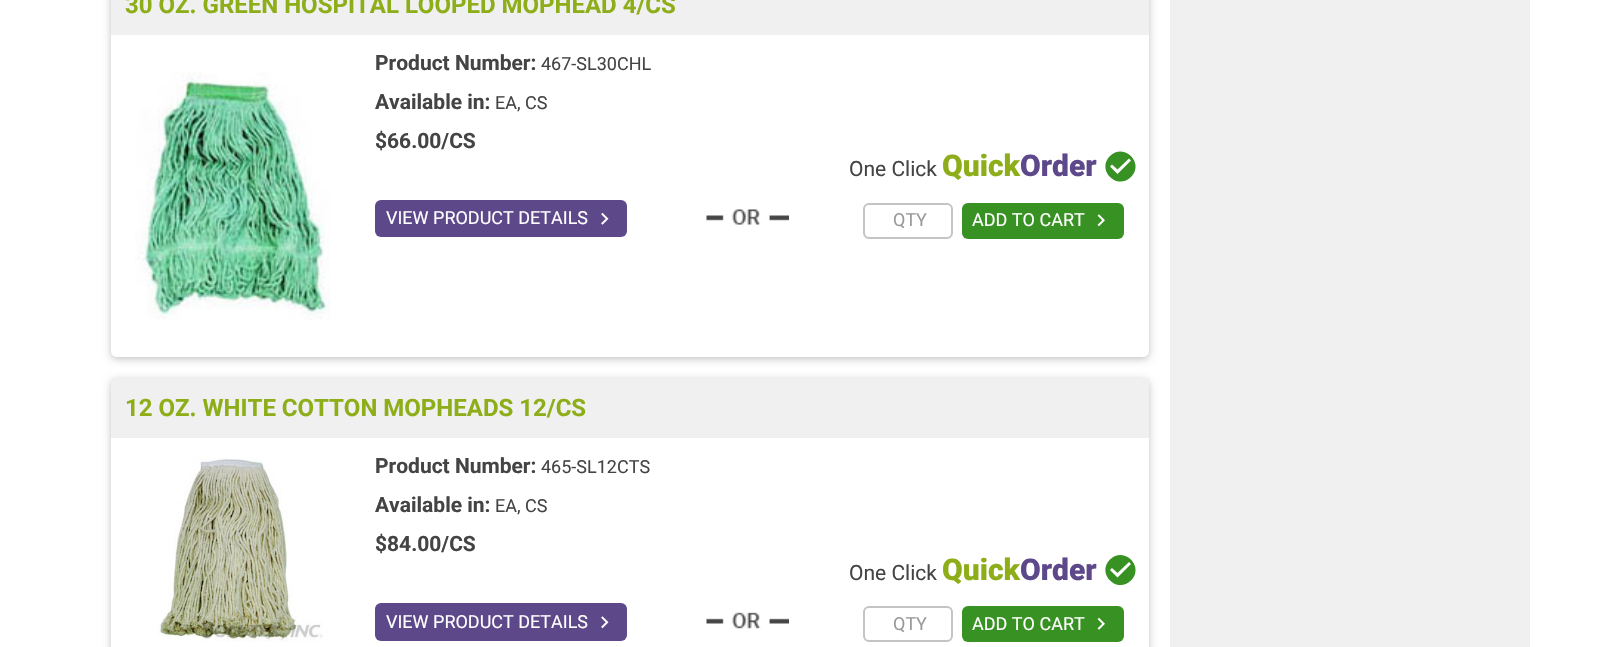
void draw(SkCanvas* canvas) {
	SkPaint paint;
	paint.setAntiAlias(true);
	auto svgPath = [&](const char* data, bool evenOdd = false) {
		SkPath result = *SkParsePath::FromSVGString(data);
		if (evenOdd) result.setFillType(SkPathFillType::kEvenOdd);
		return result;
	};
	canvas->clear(0xffffffff);
	canvas->save();
	canvas->clipPath(svgPath("M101 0H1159V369H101ZM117-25H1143C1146.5-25 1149-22.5 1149-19V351C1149 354.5 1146.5 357 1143 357H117C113.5 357 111 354.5 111 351V-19C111-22.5 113.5-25 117-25Z", true), true);
	paint.setColor(0x1f000000);
	paint.setMaskFilter(SkMaskFilter::MakeBlur(kNormal_SkBlurStyle, 3));
	canvas->drawRoundRect(SkRect::MakeXYWH(111, -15, 1038, 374), 6, 6, paint);
	paint.setMaskFilter(nullptr);
	canvas->restore();
	canvas->save();
	canvas->clipPath(svgPath("M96 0H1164V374H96ZM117-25H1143C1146.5-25 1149-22.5 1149-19V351C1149 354.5 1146.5 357 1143 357H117C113.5 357 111 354.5 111 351V-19C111-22.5 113.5-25 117-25Z", true), true);
	paint.setMaskFilter(SkMaskFilter::MakeBlur(kNormal_SkBlurStyle, 4.5));
	canvas->drawRoundRect(SkRect::MakeXYWH(111, -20, 1038, 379), 6, 6, paint);
	paint.setMaskFilter(nullptr);
	canvas->restore();
	paint.setColor(0xfff0f0f0);
	canvas->drawRect(SkRect::MakeXYWH(111, 0, 1038, 35), paint);
	SkFont f1(fontMgr->matchFamilyStyle("Roboto", SkFontStyle::Bold()), 24);
	f1.setSubpixel(true);
	paint.setColor(0xff8eae19);
	canvas->drawString("30 OZ. GREEN HOSPITAL LOOPED MOPHEAD 4/CS", 125, 13, f1, paint);
	canvas->drawImageRect(SkImages::DeferredFromEncodedData(SkData::MakeFromFileName("img1.png")), SkRect::MakeXYWH(135, 72, 195, 249), SkSamplingOptions());
	SkFont f2(fontMgr->matchFamilyStyle("Roboto", SkFontStyle::Bold()), 21);
	f2.setSubpixel(true);
	paint.setColor(0xff444444);
	canvas->drawString("Product Number:", 375, 70, f2, paint);
	SkFont f3(fontMgr->matchFamilyStyle("Roboto", SkFontStyle::Normal()), 18);
	f3.setSubpixel(true);
	canvas->drawString("467-SL30CHL", 541, 70, f3, paint);
	canvas->drawString("Available in:", 375, 109, f2, paint);
	canvas->drawString("EA, CS", 495, 109, f3, paint);
	canvas->drawString("$66.00/CS", 375, 148, f2, paint);
	paint.setColor(0xff5d488a);
	canvas->drawRoundRect(SkRect::MakeXYWH(375, 200, 252, 37), 6, 6, paint);
	paint.setColor(0xffffffff);
	canvas->drawString("VIEW PRODUCT DETAILS", 386, 224, f3, paint);
	canvas->drawImageRect(SkImages::DeferredFromEncodedData(SkData::MakeFromFileName("img2.png")), SkRect::MakeXYWH(601, 212, 8, 13), SkSamplingOptions());
	canvas->drawImageRect(SkImages::DeferredFromEncodedData(SkData::MakeFromFileName("img3.png")), SkRect::MakeXYWH(706, 209, 83, 16), SkSamplingOptions());
	SkFont f4(fontMgr->matchFamilyStyle("Roboto", SkFontStyle::Normal()), 21);
	f4.setSubpixel(true);
	paint.setColor(0xff444444);
	canvas->drawString("One Click", 849, 176, f4, paint);
	SkFont f5(fontMgr->matchFamilyStyle("Roboto", SkFontStyle(900, SkFontStyle::kNormal_Width, SkFontStyle::kUpright_Slant)), 30);
	f5.setSubpixel(true);
	paint.setColor(0xff8eae19);
	canvas->drawString("Quick", 942, 176, f5, paint);
	paint.setColor(0xff5d488a);
	canvas->drawString("Order", 1020, 176, f5, paint);
	paint.setColor(0xff389123);
	canvas->drawPath(svgPath("M1117.5 174L1131 160.5L1129 158.5L1117.5 169.5L1112 164.5L1110 166.5ZM1110 156C1124 142 1145 163 1131 177C1117 191 1096 170 1110 156Z"), paint);
	paint.setStroke(true);
	paint.setStrokeWidth(2);
	paint.setColor(0xffc4c4c4);
	canvas->drawRoundRect(SkRect::MakeXYWH(864, 204, 88, 34), 5, 5, paint);
	paint.setStroke(false);
	paint.setColor(0xff999999);
	canvas->drawString("QTY", 893, 226, f3, paint);
	paint.setColor(0xff389123);
	canvas->drawRoundRect(SkRect::MakeXYWH(962, 203, 162, 36), 6, 6, paint);
	paint.setColor(0xffffffff);
	canvas->drawString("ADD TO CART", 972, 226, f3, paint);
	canvas->drawImageRect(SkImages::DeferredFromEncodedData(SkData::MakeFromFileName("img4.png")), SkRect::MakeXYWH(1097, 214, 8, 13), SkSamplingOptions());
	canvas->save();
	canvas->clipPath(svgPath("M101 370H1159V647H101ZM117 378H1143C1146.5 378 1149 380.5 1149 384V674C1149 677.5 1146.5 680 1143 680H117C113.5 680 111 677.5 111 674V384C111 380.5 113.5 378 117 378Z", true), true);
	paint.setColor(0x1f000000);
	paint.setMaskFilter(SkMaskFilter::MakeBlur(kNormal_SkBlurStyle, 3));
	canvas->drawRoundRect(SkRect::MakeXYWH(111, 380, 1038, 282), 6, 6, paint);
	paint.setMaskFilter(nullptr);
	canvas->restore();
	canvas->save();
	canvas->clipPath(svgPath("M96 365H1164V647H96ZM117 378H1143C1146.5 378 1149 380.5 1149 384V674C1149 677.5 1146.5 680 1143 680H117C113.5 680 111 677.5 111 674V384C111 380.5 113.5 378 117 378Z", true), true);
	paint.setMaskFilter(SkMaskFilter::MakeBlur(kNormal_SkBlurStyle, 4.5));
	canvas->drawRoundRect(SkRect::MakeXYWH(111, 380, 1038, 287), 6, 6, paint);
	paint.setMaskFilter(nullptr);
	canvas->restore();
	paint.setColor(0xfff0f0f0);
	canvas->drawRect(SkRect::MakeXYWH(111, 378, 1038, 60), paint);
	paint.setColor(0xff8eae19);
	canvas->drawString("12 OZ. WHITE COTTON MOPHEADS 12/CS", 125, 416, f1, paint);
	canvas->drawImageRect(SkImages::DeferredFromEncodedData(SkData::MakeFromFileName("img5.png")), SkRect::MakeXYWH(157, 458, 166, 184), SkSamplingOptions());
	paint.setColor(0xff444444);
	canvas->drawString("Product Number:", 375, 473, f2, paint);
	canvas->drawString("465-SL12CTS", 541, 473, f3, paint);
	canvas->drawString("Available in:", 375, 512, f2, paint);
	canvas->drawString("EA, CS", 495, 512, f3, paint);
	canvas->drawString("$84.00/CS", 375, 551, f2, paint);
	paint.setColor(0xff5d488a);
	canvas->drawRoundRect(SkRect::MakeXYWH(375, 603, 252, 38), 6, 6, paint);
	paint.setColor(0xffffffff);
	canvas->drawString("VIEW PRODUCT DETAILS", 386, 628, f3, paint);
	canvas->drawImageRect(SkImages::DeferredFromEncodedData(SkData::MakeFromFileName("img6.png")), SkRect::MakeXYWH(601, 616, 8, 13), SkSamplingOptions());
	canvas->drawImageRect(SkImages::DeferredFromEncodedData(SkData::MakeFromFileName("img7.png")), SkRect::MakeXYWH(706, 612, 83, 17), SkSamplingOptions());
	paint.setColor(0xff444444);
	canvas->drawString("One Click", 849, 580, f4, paint);
	paint.setColor(0xff8eae19);
	canvas->drawString("Quick", 942, 580, f5, paint);
	paint.setColor(0xff5d488a);
	canvas->drawString("Order", 1020, 580, f5, paint);
	paint.setColor(0xff389123);
	canvas->drawPath(svgPath("M1117.5 577.5L1131 564L1129 562L1117.5 573L1112 568L1110 570ZM1110 559.5C1124 545.5 1145 566.5 1131 580.5C1117 594.5 1096 573.5 1110 559.5Z"), paint);
	paint.setStroke(true);
	paint.setColor(0xffc4c4c4);
	canvas->drawRoundRect(SkRect::MakeXYWH(864, 607, 88, 34), 5, 5, paint);
	paint.setStroke(false);
	paint.setColor(0xff999999);
	canvas->drawString("QTY", 893, 630, f3, paint);
	paint.setColor(0xff389123);
	canvas->drawRoundRect(SkRect::MakeXYWH(962, 606, 162, 36), 6, 6, paint);
	paint.setColor(0xffffffff);
	canvas->drawString("ADD TO CART", 972, 630, f3, paint);
	canvas->drawImageRect(SkImages::DeferredFromEncodedData(SkData::MakeFromFileName("img8.png")), SkRect::MakeXYWH(1097, 617, 8, 13), SkSamplingOptions());
	paint.setColor(0xfff0f0f0);
	canvas->drawRect(SkRect::MakeXYWH(1170, 0, 360, 647), paint);
}
